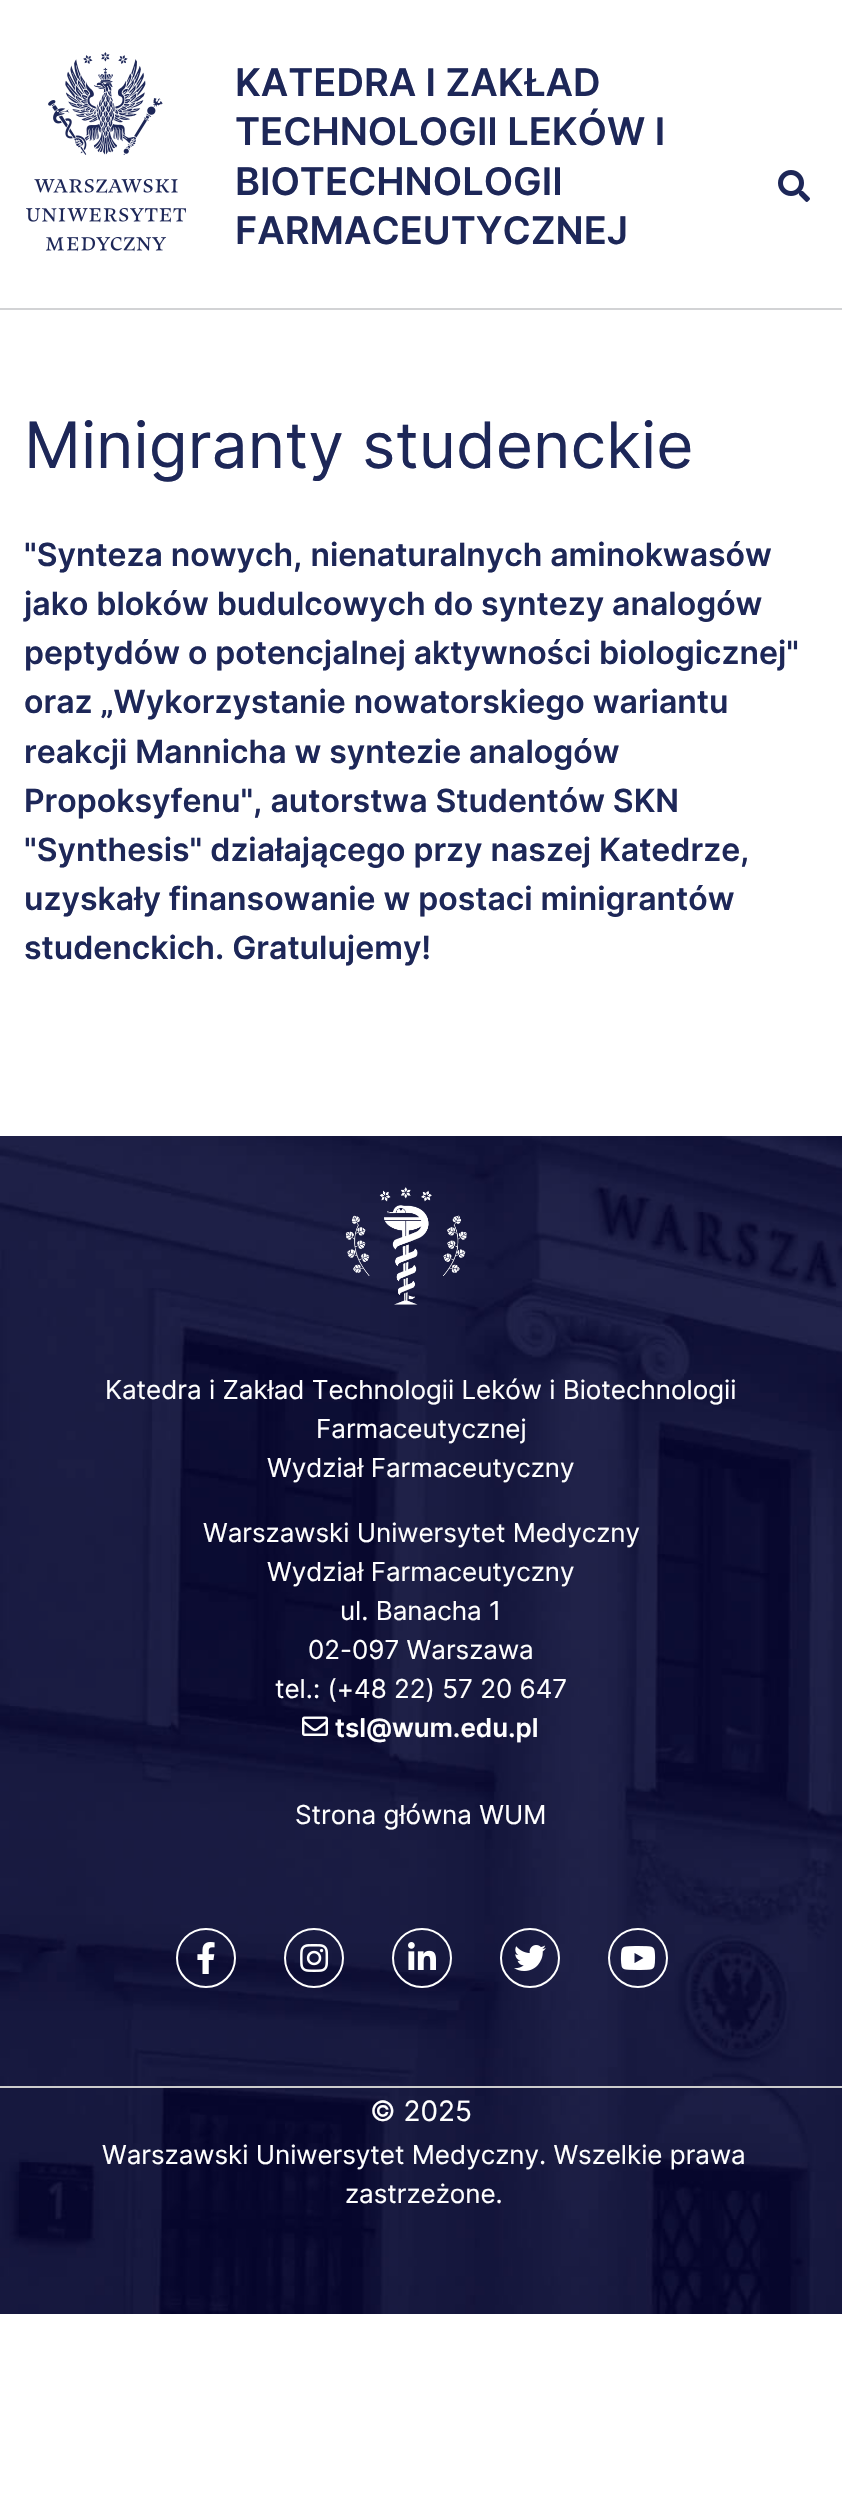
void draw(SkCanvas* canvas) {
	SkPaint paint;
	paint.setAntiAlias(true);
	canvas->clear(0xffffffff);
	paint.setColor(0xffd2d3d5);
	canvas->drawRect(SkRect::MakeXYWH(0, 308, 842, 2), paint);
	canvas->drawImageRect(SkImages::DeferredFromEncodedData(SkData::MakeFromFileName("img1.png")), SkRect::MakeXYWH(26, 52, 160, 200), SkSamplingOptions());
	SkFont f1(fontMgr->matchFamilyStyle("Inter", SkFontStyle(600, SkFontStyle::kNormal_Width, SkFontStyle::kUpright_Slant)), 38);
	f1.setSubpixel(true);
	paint.setColor(0xff1d2758);
	canvas->drawString("KATEDRA I ZAKŁAD", 235, 96, f1, paint);
	canvas->drawString("TECHNOLOGII LEKÓW I", 235, 145, f1, paint);
	canvas->drawString("BIOTECHNOLOGII", 235, 195, f1, paint);
	canvas->drawString("FARMACEUTYCZNEJ", 235, 244, f1, paint);
	canvas->drawImageRect(SkImages::DeferredFromEncodedData(SkData::MakeFromFileName("img2.png")), SkRect::MakeXYWH(778, 170, 32, 32), SkSamplingOptions());
	SkFont f2(fontMgr->matchFamilyStyle("Inter", SkFontStyle::Normal()), 64);
	f2.setSubpixel(true);
	canvas->drawString("Minigranty studenckie", 24, 468, f2, paint);
	SkFont f3(fontMgr->matchFamilyStyle("Inter", SkFontStyle(600, SkFontStyle::kNormal_Width, SkFontStyle::kUpright_Slant)), 32);
	f3.setSubpixel(true);
	canvas->drawString("\"Synteza nowych, nienaturalnych aminokwasów", 24, 566, f3, paint);
	canvas->drawString("jako bloków budulcowych do syntezy analogów", 24, 615, f3, paint);
	canvas->drawString("peptydów o potencjalnej aktywności biologicznej\"", 24, 664, f3, paint);
	canvas->drawString("oraz „Wykorzystanie nowatorskiego wariantu", 24, 713, f3, paint);
	canvas->drawString("reakcji Mannicha w syntezie analogów", 24, 763, f3, paint);
	canvas->drawString("Propoksyfenu\", autorstwa Studentów SKN", 24, 812, f3, paint);
	canvas->drawString("\"Synthesis\" działającego przy naszej Katedrze,", 24, 861, f3, paint);
	canvas->drawString("uzyskały finansowanie w postaci minigrantów", 24, 910, f3, paint);
	canvas->drawString("studenckich. Gratulujemy!", 24, 959, f3, paint);
	canvas->drawImageRect(SkImages::DeferredFromEncodedData(SkData::MakeFromFileName("img3.png")), SkRect::MakeXYWH(0, 1136, 842, 1178), SkSamplingOptions());
	canvas->drawImageRect(SkImages::DeferredFromEncodedData(SkData::MakeFromFileName("img4.png")), SkRect::MakeXYWH(345, 1187, 122, 118), SkSamplingOptions());
	SkFont f4(fontMgr->matchFamilyStyle("Inter", SkFontStyle::Normal()), 26);
	f4.setSubpixel(true);
	paint.setColor(0xffffffff);
	canvas->drawString("Katedra i Zakład Technologii Leków i Biotechnologii", 105, 1399, f4, paint);
	canvas->drawString("Farmaceutycznej", 316, 1438, f4, paint);
	canvas->drawString("Wydział Farmaceutyczny", 267, 1477, f4, paint);
	canvas->drawString("Warszawski Uniwersytet Medyczny", 203, 1542, f4, paint);
	canvas->drawString("Wydział Farmaceutyczny", 267, 1581, f4, paint);
	canvas->drawString("ul. Banacha 1", 340, 1620, f4, paint);
	canvas->drawString("02-097 Warszawa", 308, 1659, f4, paint);
	canvas->drawString("tel.: (+48 22) 57 20 647", 275, 1698, f4, paint);
	canvas->drawImageRect(SkImages::DeferredFromEncodedData(SkData::MakeFromFileName("img5.png")), SkRect::MakeXYWH(302, 1716, 26, 20), SkSamplingOptions());
	SkFont f5(fontMgr->matchFamilyStyle("Inter", SkFontStyle(600, SkFontStyle::kNormal_Width, SkFontStyle::kUpright_Slant)), 26);
	f5.setSubpixel(true);
	canvas->drawString("tsl@wum.edu.pl", 335, 1737, f5, paint);
	canvas->drawString("Strona główna WUM", 295, 1824, f4, paint);
	paint.setStroke(true);
	paint.setStrokeWidth(2);
	canvas->drawCircle(206, 1958, 29, paint);
	canvas->drawImageRect(SkImages::DeferredFromEncodedData(SkData::MakeFromFileName("img6.png")), SkRect::MakeXYWH(197, 1942, 18, 32), SkSamplingOptions());
	canvas->drawCircle(314, 1958, 29, paint);
	canvas->drawImageRect(SkImages::DeferredFromEncodedData(SkData::MakeFromFileName("img7.png")), SkRect::MakeXYWH(300, 1944, 29, 28), SkSamplingOptions());
	canvas->drawCircle(422, 1958, 29, paint);
	canvas->drawImageRect(SkImages::DeferredFromEncodedData(SkData::MakeFromFileName("img8.png")), SkRect::MakeXYWH(408, 1942, 28, 28), SkSamplingOptions());
	canvas->drawCircle(530, 1958, 29, paint);
	canvas->drawImageRect(SkImages::DeferredFromEncodedData(SkData::MakeFromFileName("img9.png")), SkRect::MakeXYWH(514, 1945, 32, 26), SkSamplingOptions());
	canvas->drawCircle(638, 1958, 29, paint);
	canvas->drawImageRect(SkImages::DeferredFromEncodedData(SkData::MakeFromFileName("img10.png")), SkRect::MakeXYWH(620, 1946, 36, 24), SkSamplingOptions());
	paint.setStroke(false);
	paint.setColor(0xffcccccc);
	canvas->drawRect(SkRect::MakeXYWH(0, 2086, 842, 2), paint);
	SkFont f6(fontMgr->matchFamilyStyle("Inter", SkFontStyle::Normal()), 28);
	f6.setSubpixel(true);
	paint.setColor(0xffffffff);
	canvas->drawString("© 2025", 370, 2121, f6, paint);
	canvas->drawString("Warszawski Uniwersytet Medyczny. Wszelkie prawa", 102, 2164, f4, paint);
	canvas->drawString("zastrzeżone.", 345, 2203, f4, paint);
}
